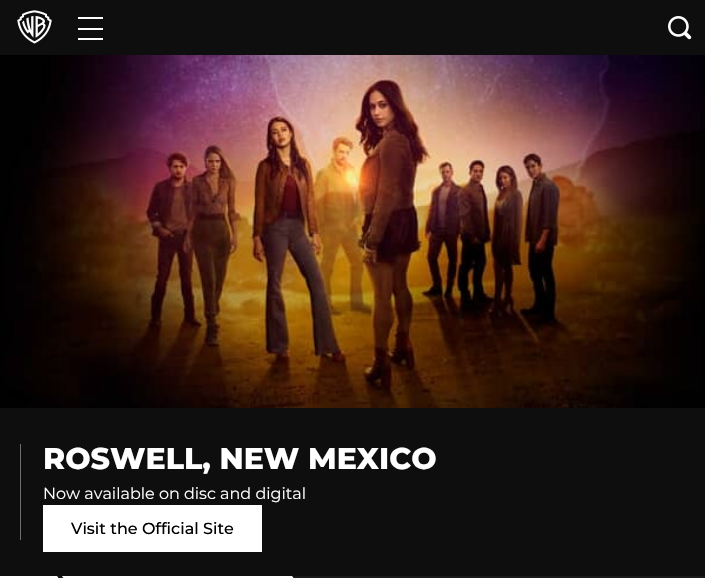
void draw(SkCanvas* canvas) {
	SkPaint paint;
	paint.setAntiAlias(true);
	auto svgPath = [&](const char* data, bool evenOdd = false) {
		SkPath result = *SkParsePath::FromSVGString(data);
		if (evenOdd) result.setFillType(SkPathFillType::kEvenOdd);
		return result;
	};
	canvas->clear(0xff0e0e0e);
	canvas->drawImageRect(SkImages::DeferredFromEncodedData(SkData::MakeFromFileName("img1.png")), SkRect::MakeXYWH(17, 10, 35, 34), SkSamplingOptions());
	paint.setColor(0xfffdfdfd);
	canvas->drawRect(SkRect::MakeXYWH(78, 17, 25, 2), paint);
	canvas->drawRect(SkRect::MakeXYWH(78, 28, 25, 2), paint);
	canvas->drawRect(SkRect::MakeXYWH(78, 38, 25, 2), paint);
	canvas->drawImageRect(SkImages::DeferredFromEncodedData(SkData::MakeFromFileName("img2.png")), SkRect::MakeXYWH(668, 16, 24, 24), SkSamplingOptions());
	canvas->drawImageRect(SkImages::DeferredFromEncodedData(SkData::MakeFromFileName("img3.png")), SkRect::MakeXYWH(0, 55, 705, 353), SkSamplingOptions());
	paint.setColor(0xff6e6e6e);
	canvas->drawRect(SkRect::MakeXYWH(20, 444, 1, 96), paint);
	SkFont f1(fontMgr->matchFamilyStyle("Montserrat", SkFontStyle(800, SkFontStyle::kNormal_Width, SkFontStyle::kUpright_Slant)), 30);
	f1.setSubpixel(true);
	paint.setColor(0xffffffff);
	canvas->drawString("ROSWELL, NEW MEXICO", 43, 469, f1, paint);
	SkFont f2(fontMgr->matchFamilyStyle("Montserrat", SkFontStyle::Normal()), 16);
	f2.setSubpixel(true);
	canvas->drawString("Now available on disc and digital", 43, 499, f2, paint);
	canvas->drawRect(SkRect::MakeXYWH(43, 505, 219, 47), paint);
	SkFont f3(fontMgr->matchFamilyStyle("Montserrat", SkFontStyle(500, SkFontStyle::kNormal_Width, SkFontStyle::kUpright_Slant)), 16);
	f3.setSubpixel(true);
	paint.setColor(0xff000000);
	canvas->drawString("Visit the Official Site", 71, 534, f3, paint);
	paint.setColor(0xff1a1a1a);
	canvas->drawRect(SkRect::MakeXYWH(57, 576, 648, 2), paint);
	paint.setColor(0xffffffff);
	canvas->drawRect(SkRect::MakeXYWH(0, 576, 57, 2), paint);
	canvas->drawPath(svgPath("M57 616V576L72 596Z"), paint);
	canvas->drawRect(SkRect::MakeXYWH(62, 576, 230, 2), paint);
	paint.setColor(0xff373737);
	canvas->drawPath(svgPath("M62 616V576L77 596Z"), paint);
	paint.setColor(0xffffffff);
	canvas->drawPath(svgPath("M292 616V576L307 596Z"), paint);
}
